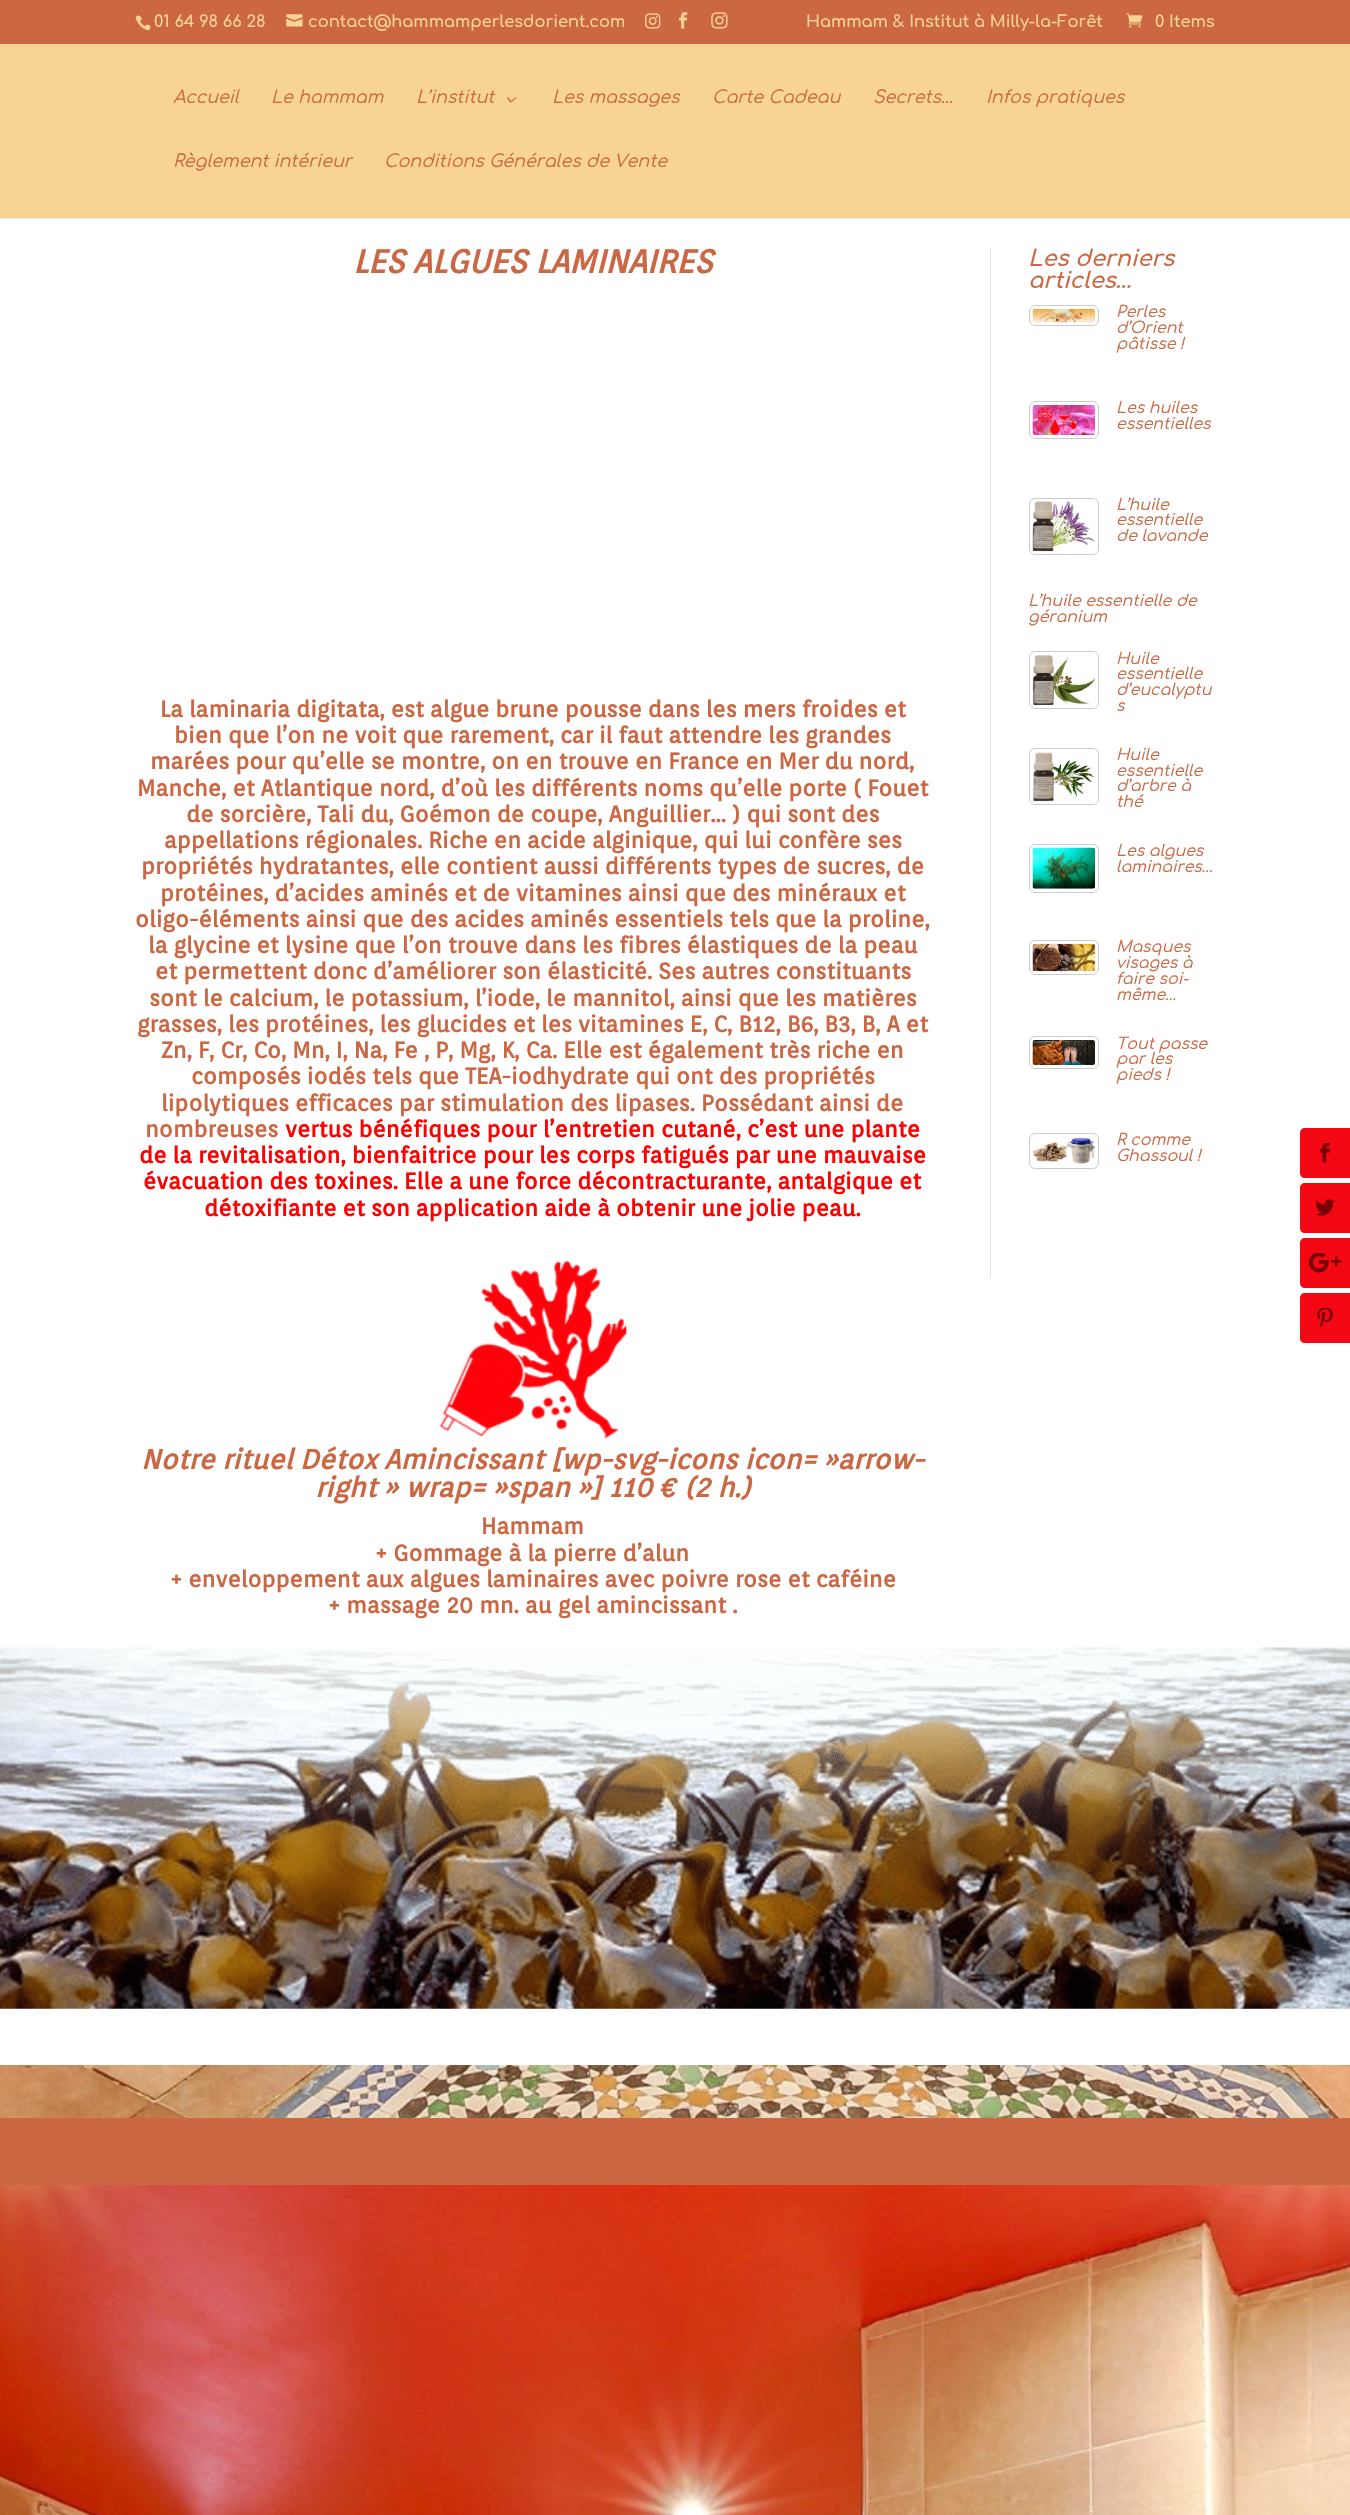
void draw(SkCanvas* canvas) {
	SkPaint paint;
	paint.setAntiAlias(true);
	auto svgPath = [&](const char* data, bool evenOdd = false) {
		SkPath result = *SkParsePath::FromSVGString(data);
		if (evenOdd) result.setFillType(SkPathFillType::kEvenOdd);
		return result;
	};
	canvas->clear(0xffffffff);
	canvas->drawImageRect(SkImages::DeferredFromEncodedData(SkData::MakeFromFileName("img1.png")), SkRect::MakeXYWH(0, 2065, 1350, 450), SkSamplingOptions());
	paint.setColor(0xffcb6843);
	canvas->drawRect(SkRect::MakeXYWH(0, 0, 1350, 44), paint);
	canvas->drawImageRect(SkImages::DeferredFromEncodedData(SkData::MakeFromFileName("img2.png")), SkRect::MakeXYWH(135, 15, 16, 16), SkSamplingOptions());
	SkFont f1(fontMgr->matchFamilyStyle("Comfortaa", SkFontStyle(600, SkFontStyle::kNormal_Width, SkFontStyle::kUpright_Slant)), 16.25);
	f1.setSubpixel(true);
	paint.setColor(0xfff7d494);
	canvas->drawString("01 64 98 66 28", 154, 27, f1, paint);
	canvas->drawImageRect(SkImages::DeferredFromEncodedData(SkData::MakeFromFileName("img3.png")), SkRect::MakeXYWH(286, 14, 17, 13), SkSamplingOptions());
	canvas->drawString("contact@hammamperlesdorient.com", 308, 27, f1, paint);
	canvas->drawImageRect(SkImages::DeferredFromEncodedData(SkData::MakeFromFileName("img4.png")), SkRect::MakeXYWH(645, 13, 16, 16), SkSamplingOptions());
	canvas->drawImageRect(SkImages::DeferredFromEncodedData(SkData::MakeFromFileName("img5.png")), SkRect::MakeXYWH(679, 12, 9, 17), SkSamplingOptions());
	canvas->drawImageRect(SkImages::DeferredFromEncodedData(SkData::MakeFromFileName("img6.png")), SkRect::MakeXYWH(711, 12, 17, 17), SkSamplingOptions());
	canvas->drawString("Hammam & Institut à Milly-la-Forêt", 806, 27, f1, paint);
	canvas->drawImageRect(SkImages::DeferredFromEncodedData(SkData::MakeFromFileName("img7.png")), SkRect::MakeXYWH(1126, 13, 17, 15), SkSamplingOptions());
	canvas->drawString("0 Items", 1155, 27, f1, paint);
	paint.setColor(0xffe6e6e6);
	canvas->drawRect(SkRect::MakeXYWH(0, 218, 1350, 1), paint);
	paint.setColor(0xfff7d494);
	canvas->drawRect(SkRect::MakeXYWH(0, 44, 1350, 174), paint);
	SkFont f2(fontMgr->matchFamilyStyle("Comfortaa", SkFontStyle::Italic()), 17.5);
	f2.setSubpixel(true);
	paint.setColor(0xffcb6843);
	canvas->drawString("Accueil", 173, 103, f2, paint);
	canvas->drawString("Le hammam", 271, 103, f2, paint);
	canvas->drawString("L’institut", 416, 103, f2, paint);
	canvas->drawImageRect(SkImages::DeferredFromEncodedData(SkData::MakeFromFileName("img8.png")), SkRect::MakeXYWH(507, 97, 10, 6), SkSamplingOptions());
	canvas->drawString("Les massages", 552, 103, f2, paint);
	canvas->drawString("Carte Cadeau", 712, 103, f2, paint);
	canvas->drawString("Secrets…", 873, 103, f2, paint);
	canvas->drawString("Infos pratiques", 986, 103, f2, paint);
	canvas->drawString("Règlement intérieur", 173, 167, f2, paint);
	canvas->drawString("Conditions Générales de Vente", 384, 167, f2, paint);
	SkFont f3(fontMgr->matchFamilyStyle("Orienta", SkFontStyle::BoldItalic()), 32.5);
	f3.setSubpixel(true);
	canvas->drawString("LES ALGUES LAMINAIRES", 353, 273, f3, paint);
	SkFont f4(fontMgr->matchFamilyStyle("Orienta", SkFontStyle::Bold()), 22.5);
	f4.setSubpixel(true);
	canvas->drawString("La laminaria digitata, est algue brune pousse dans les mers froides et", 160, 717, f4, paint);
	canvas->drawString("bien que l’on ne voit que rarement, car il faut attendre les grandes", 174, 743, f4, paint);
	canvas->drawString("marées pour qu’elle se montre, on en trouve en France en Mer du nord,", 150, 769, f4, paint);
	canvas->drawString("Manche, et Atlantique nord, d’où les différents noms qu’elle porte ( Fouet", 137, 796, f4, paint);
	canvas->drawString("de sorcière, Tali du, Goémon de coupe, Anguillier… ) qui sont des", 186, 822, f4, paint);
	canvas->drawString("appellations régionales. Riche en acide alginique, qui lui confère ses", 164, 848, f4, paint);
	canvas->drawString("propriétés hydratantes, elle contient aussi différents types de sucres, de", 141, 874, f4, paint);
	canvas->drawString("protéines, d’acides aminés et de vitamines ainsi que des minéraux et", 160, 901, f4, paint);
	canvas->drawString("oligo-éléments ainsi que des acides aminés essentiels tels que la proline,", 135, 927, f4, paint);
	canvas->drawString("la glycine et lysine que l’on trouve dans les fibres élastiques de la peau", 148, 953, f4, paint);
	canvas->drawString("et permettent donc d’améliorer son élasticité. Ses autres constituants", 155, 979, f4, paint);
	canvas->drawString("sont le calcium, le potassium, l’iode, le mannitol, ainsi que les matières", 149, 1006, f4, paint);
	canvas->drawString("grasses, les protéines, les glucides et les vitamines E, C, B12, B6, B3, B, A et", 137, 1032, f4, paint);
	canvas->drawString("Zn, F, Cr, Co, Mn, I, Na, Fe , P, Mg, K, Ca. Elle est également très riche en", 161, 1058, f4, paint);
	canvas->drawString("composés iodés tels que TEA-iodhydrate qui ont des propriétés", 191, 1084, f4, paint);
	canvas->drawString("lipolytiques efficaces par stimulation des lipases. Possédant ainsi de", 161, 1111, f4, paint);
	canvas->drawString("nombreuses", 145, 1137, f4, paint);
	paint.setColor(0xffff0000);
	canvas->drawString("vertus bénéfiques pour l’entretien cutané, c’est une plante", 285, 1137, f4, paint);
	canvas->drawString("de la revitalisation, bienfaitrice pour les corps fatigués par une mauvaise", 139, 1163, f4, paint);
	canvas->drawString("évacuation des toxines. Elle a une force décontracturante, antalgique et", 143, 1189, f4, paint);
	canvas->drawString("détoxifiante et son application aide à obtenir une jolie peau.", 204, 1216, f4, paint);
	canvas->drawImageRect(SkImages::DeferredFromEncodedData(SkData::MakeFromFileName("img9.png")), SkRect::MakeXYWH(439, 1260, 188, 179), SkSamplingOptions());
	SkFont f5(fontMgr->matchFamilyStyle("Orienta", SkFontStyle::BoldItalic()), 27.5);
	f5.setSubpixel(true);
	paint.setColor(0xffcb6843);
	canvas->drawString("Notre rituel Détox Amincissant [wp-svg-icons icon= »arrow-", 141, 1469, f5, paint);
	canvas->drawString("right » wrap= »span »] 110 € (2 h.)", 315, 1497, f5, paint);
	canvas->drawString("Hammam", 481, 1534, f4, paint);
	canvas->drawString("+ Gommage à la pierre d’alun", 375, 1561, f4, paint);
	canvas->drawString("+ enveloppement aux algues laminaires avec poivre rose et caféine", 170, 1587, f4, paint);
	canvas->drawString("+ massage 20 mn. au gel amincissant .", 328, 1613, f4, paint);
	paint.setColor(0xffe6e6e6);
	canvas->drawRect(SkRect::MakeXYWH(990, 248, 1, 1030), paint);
	SkFont f6(fontMgr->matchFamilyStyle("Comfortaa", SkFontStyle(600, SkFontStyle::kNormal_Width, SkFontStyle::kItalic_Slant)), 22.5);
	f6.setSubpixel(true);
	paint.setColor(0xffcb6843);
	canvas->drawString("Les derniers", 1028, 266, f6, paint);
	canvas->drawString("articles…", 1028, 288, f6, paint);
	paint.setStroke(true);
	paint.setStrokeWidth(1);
	paint.setColor(0xffcccccc);
	canvas->drawRoundRect(SkRect::MakeXYWH(1029.5, 305.5, 69, 20), 5.5, 5.5, paint);
	canvas->drawImageRect(SkImages::DeferredFromEncodedData(SkData::MakeFromFileName("img10.png")), SkRect::MakeXYWH(1032, 308, 63, 15), SkSamplingOptions());
	SkFont f7(fontMgr->matchFamilyStyle("Comfortaa", SkFontStyle::Italic()), 15.75);
	f7.setSubpixel(true);
	paint.setStroke(false);
	paint.setColor(0xffcb6843);
	canvas->drawString("Perles", 1116, 317, f7, paint);
	canvas->drawString("d’Orient", 1116, 333, f7, paint);
	canvas->drawString("pâtisse !", 1116, 349, f7, paint);
	paint.setStroke(true);
	paint.setColor(0xffcccccc);
	canvas->drawRoundRect(SkRect::MakeXYWH(1029.5, 401.5, 69, 37), 5.5, 5.5, paint);
	canvas->drawImageRect(SkImages::DeferredFromEncodedData(SkData::MakeFromFileName("img11.png")), SkRect::MakeXYWH(1032, 405, 63, 30), SkSamplingOptions());
	paint.setStroke(false);
	paint.setColor(0xffcb6843);
	canvas->drawString("Les huiles", 1116, 413, f7, paint);
	canvas->drawString("essentielles", 1116, 429, f7, paint);
	paint.setStroke(true);
	paint.setColor(0xffcccccc);
	canvas->drawRoundRect(SkRect::MakeXYWH(1029.5, 498.5, 69, 56), 5.5, 5.5, paint);
	canvas->drawImageRect(SkImages::DeferredFromEncodedData(SkData::MakeFromFileName("img12.png")), SkRect::MakeXYWH(1032, 501, 63, 51), SkSamplingOptions());
	paint.setStroke(false);
	paint.setColor(0xffcb6843);
	canvas->drawString("L’huile", 1116, 510, f7, paint);
	canvas->drawString("essentielle", 1116, 525, f7, paint);
	canvas->drawString("de lavande", 1116, 541, f7, paint);
	canvas->drawString("L’huile essentielle de", 1028, 606, f7, paint);
	canvas->drawString("géranium", 1028, 622, f7, paint);
	paint.setStroke(true);
	paint.setColor(0xffcccccc);
	canvas->drawRoundRect(SkRect::MakeXYWH(1029.5, 651.5, 69, 57), 5.5, 5.5, paint);
	canvas->drawImageRect(SkImages::DeferredFromEncodedData(SkData::MakeFromFileName("img13.png")), SkRect::MakeXYWH(1032, 655, 63, 50), SkSamplingOptions());
	paint.setStroke(false);
	paint.setColor(0xffcb6843);
	canvas->drawString("Huile", 1116, 664, f7, paint);
	canvas->drawString("essentielle", 1116, 679, f7, paint);
	canvas->drawString("d’eucalyptu", 1116, 695, f7, paint);
	canvas->drawString("s", 1116, 711, f7, paint);
	paint.setStroke(true);
	paint.setColor(0xffcccccc);
	canvas->drawRoundRect(SkRect::MakeXYWH(1029.5, 748.5, 69, 56), 5.5, 5.5, paint);
	canvas->drawImageRect(SkImages::DeferredFromEncodedData(SkData::MakeFromFileName("img14.png")), SkRect::MakeXYWH(1033, 752, 62, 50), SkSamplingOptions());
	paint.setStroke(false);
	paint.setColor(0xffcb6843);
	canvas->drawString("Huile", 1116, 760, f7, paint);
	canvas->drawString("essentielle", 1116, 776, f7, paint);
	canvas->drawString("d’arbre à", 1116, 791, f7, paint);
	canvas->drawString("thé", 1116, 807, f7, paint);
	paint.setStroke(true);
	paint.setColor(0xffcccccc);
	canvas->drawRoundRect(SkRect::MakeXYWH(1029.5, 844.5, 69, 48), 5.5, 5.5, paint);
	canvas->drawImageRect(SkImages::DeferredFromEncodedData(SkData::MakeFromFileName("img15.png")), SkRect::MakeXYWH(1032, 847, 63, 42), SkSamplingOptions());
	paint.setStroke(false);
	paint.setColor(0xffcb6843);
	canvas->drawString("Les algues", 1116, 856, f7, paint);
	canvas->drawString("laminaires…", 1116, 872, f7, paint);
	paint.setStroke(true);
	paint.setColor(0xffcccccc);
	canvas->drawRoundRect(SkRect::MakeXYWH(1029.5, 940.5, 69, 34), 5.5, 5.5, paint);
	canvas->drawImageRect(SkImages::DeferredFromEncodedData(SkData::MakeFromFileName("img16.png")), SkRect::MakeXYWH(1032, 943, 63, 29), SkSamplingOptions());
	paint.setStroke(false);
	paint.setColor(0xffcb6843);
	canvas->drawString("Masques", 1116, 952, f7, paint);
	canvas->drawString("visages à", 1116, 968, f7, paint);
	canvas->drawString("faire soi-", 1116, 984, f7, paint);
	canvas->drawString("même…", 1116, 1000, f7, paint);
	paint.setStroke(true);
	paint.setColor(0xffcccccc);
	canvas->drawRoundRect(SkRect::MakeXYWH(1029.5, 1036.5, 69, 32), 5.5, 5.5, paint);
	canvas->drawImageRect(SkImages::DeferredFromEncodedData(SkData::MakeFromFileName("img17.png")), SkRect::MakeXYWH(1032, 1040, 63, 25), SkSamplingOptions());
	paint.setStroke(false);
	paint.setColor(0xffcb6843);
	canvas->drawString("Tout passe", 1116, 1049, f7, paint);
	canvas->drawString("par les", 1116, 1064, f7, paint);
	canvas->drawString("pieds !", 1116, 1080, f7, paint);
	paint.setStroke(true);
	paint.setColor(0xffcccccc);
	canvas->drawRoundRect(SkRect::MakeXYWH(1029.5, 1133.5, 69, 35), 5.5, 5.5, paint);
	canvas->drawImageRect(SkImages::DeferredFromEncodedData(SkData::MakeFromFileName("img18.png")), SkRect::MakeXYWH(1032, 1137, 63, 27), SkSamplingOptions());
	paint.setStroke(false);
	paint.setColor(0xffcb6843);
	canvas->drawString("R comme", 1116, 1145, f7, paint);
	canvas->drawString("Ghassoul !", 1116, 1161, f7, paint);
	canvas->drawImageRect(SkImages::DeferredFromEncodedData(SkData::MakeFromFileName("img19.png")), SkRect::MakeXYWH(0, 1647, 1350, 362), SkSamplingOptions());
	canvas->drawRect(SkRect::MakeXYWH(0, 2118, 1350, 67), paint);
	paint.setColor(0xfff30814);
	canvas->drawPath(svgPath("M1305 1128H1350V1178H1305C1302 1178 1300 1176 1300 1173V1133C1300 1130 1302 1128 1305 1128Z"), paint);
	canvas->drawImageRect(SkImages::DeferredFromEncodedData(SkData::MakeFromFileName("img20.png")), SkRect::MakeXYWH(1320, 1143, 10, 20), SkSamplingOptions());
	canvas->drawPath(svgPath("M1305 1183H1350V1233H1305C1302 1233 1300 1231 1300 1228V1188C1300 1185 1302 1183 1305 1183Z"), paint);
	canvas->drawImageRect(SkImages::DeferredFromEncodedData(SkData::MakeFromFileName("img21.png")), SkRect::MakeXYWH(1315, 1199, 20, 17), SkSamplingOptions());
	canvas->drawPath(svgPath("M1305 1238H1350V1288H1305C1302 1288 1300 1286 1300 1283V1243C1300 1240 1302 1238 1305 1238Z"), paint);
	canvas->drawImageRect(SkImages::DeferredFromEncodedData(SkData::MakeFromFileName("img22.png")), SkRect::MakeXYWH(1308, 1253, 34, 20), SkSamplingOptions());
	canvas->drawPath(svgPath("M1305 1293H1350V1343H1305C1302 1343 1300 1341 1300 1338V1298C1300 1295 1302 1293 1305 1293Z"), paint);
	canvas->drawImageRect(SkImages::DeferredFromEncodedData(SkData::MakeFromFileName("img23.png")), SkRect::MakeXYWH(1317, 1308, 16, 20), SkSamplingOptions());
}
